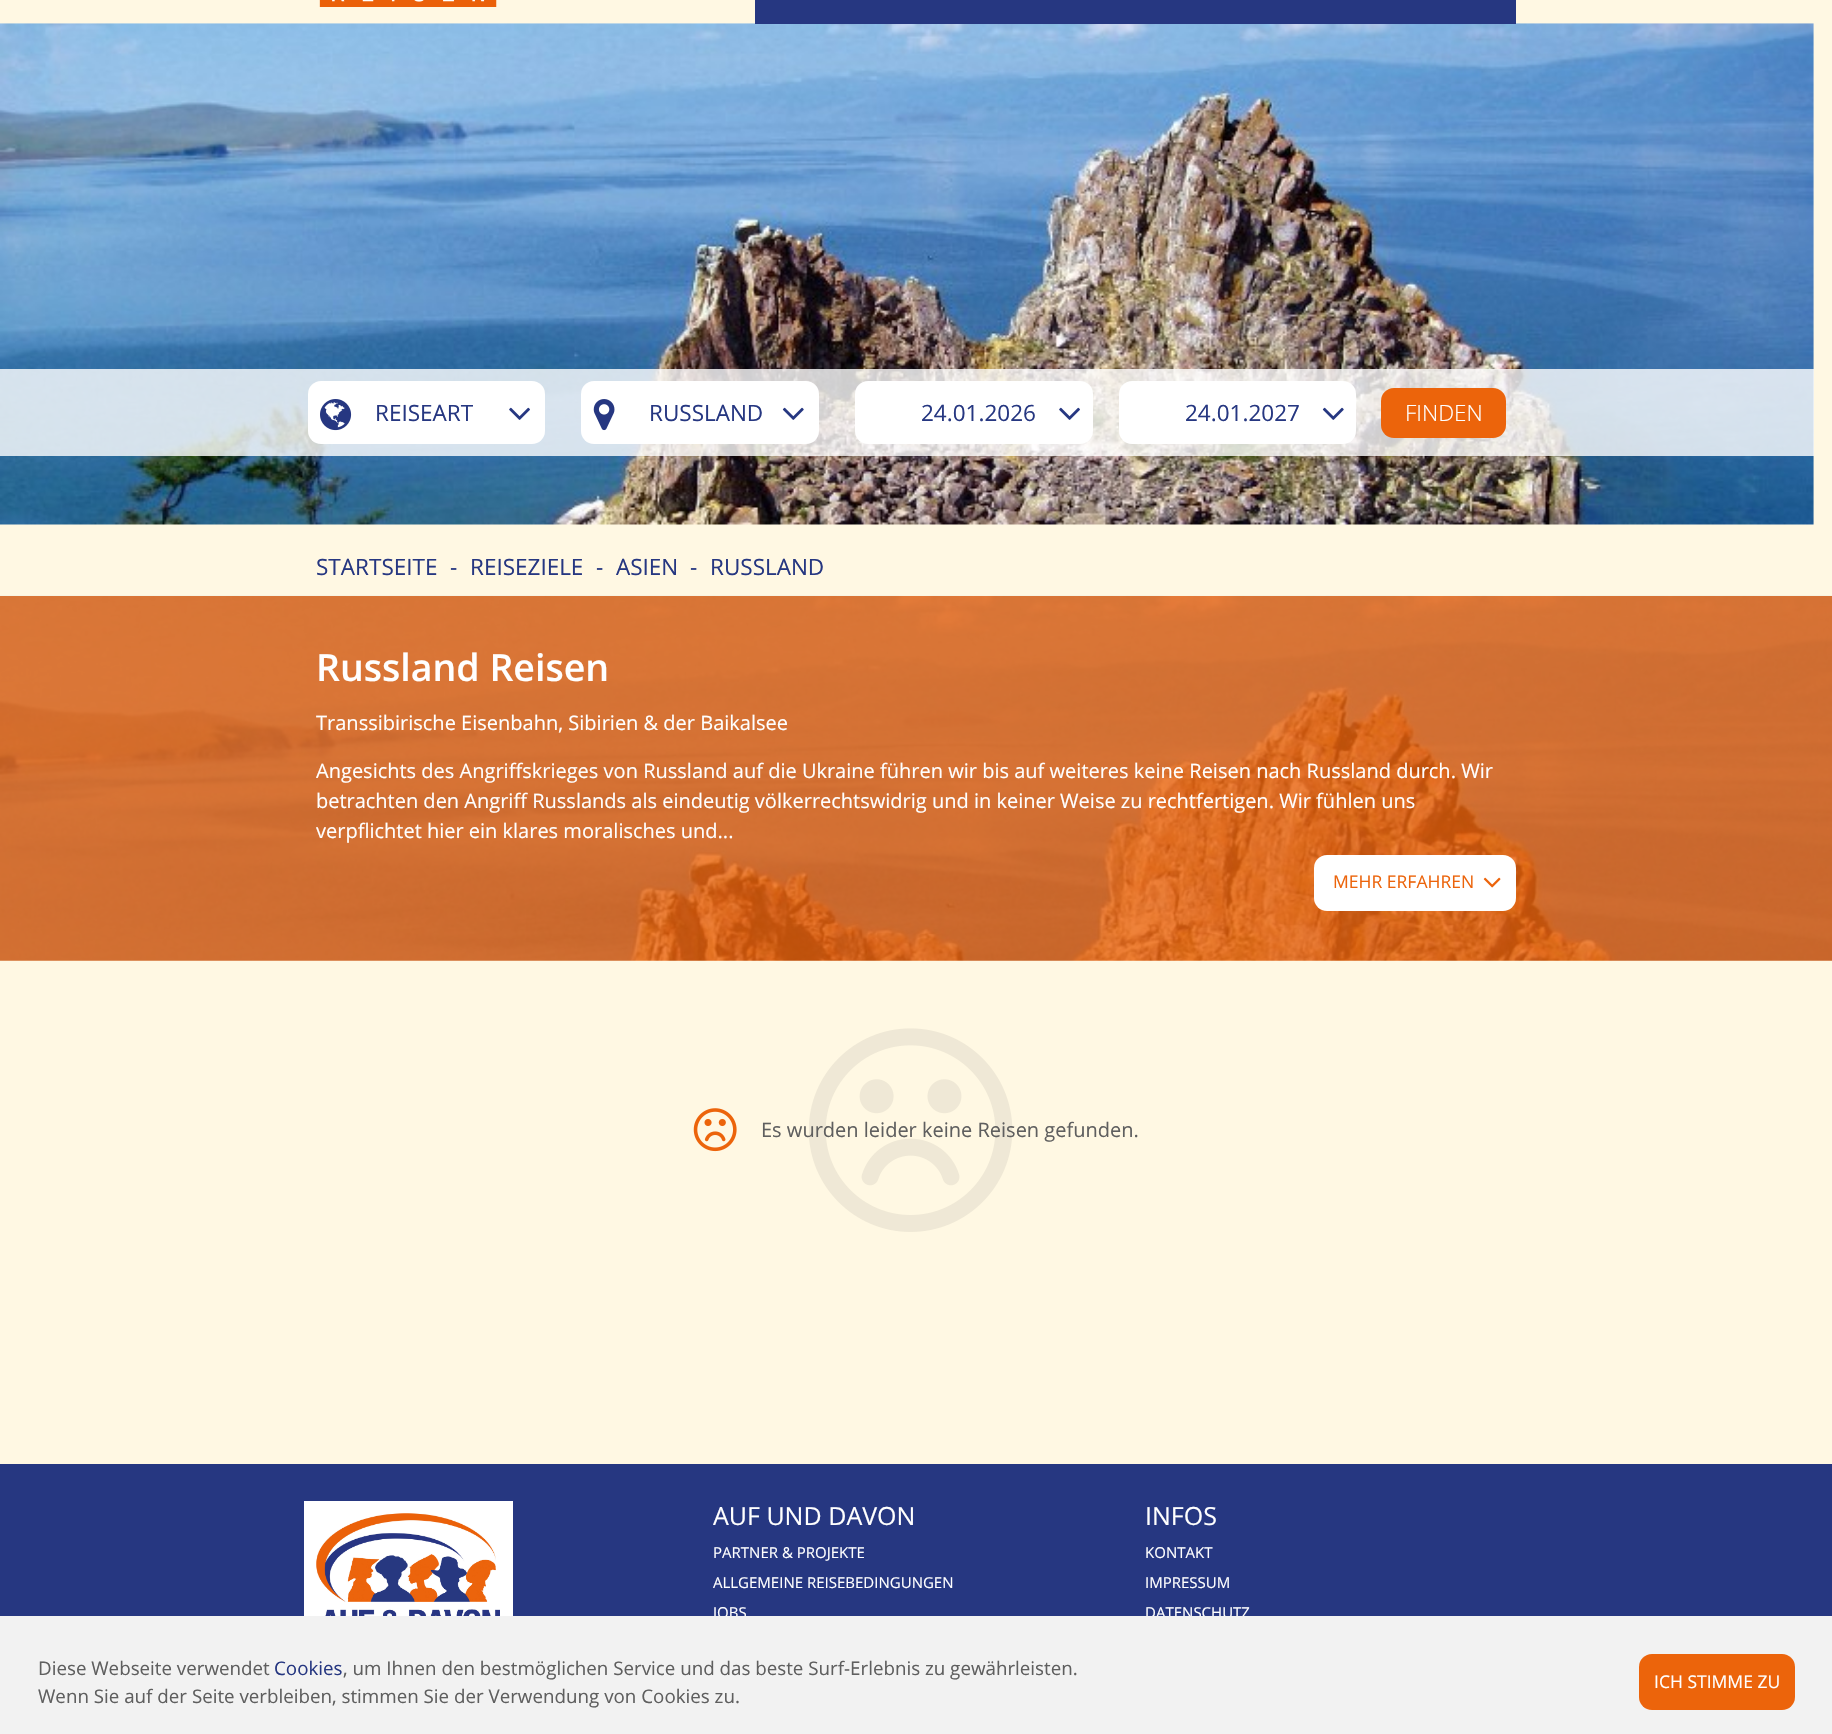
void draw(SkCanvas* canvas) {
	SkPaint paint;
	paint.setAntiAlias(true);
	canvas->clear(0xfffff8e3);
	canvas->drawImageRect(SkImages::DeferredFromEncodedData(SkData::MakeFromFileName("img1.png")), SkRect::MakeXYWH(319, 0, 178, 7), SkSamplingOptions());
	canvas->drawImageRect(SkImages::DeferredFromEncodedData(SkData::MakeFromFileName("img2.png")), SkRect::MakeXYWH(0, 23, 1814, 502), SkSamplingOptions());
	paint.setColor(0xff263781);
	canvas->drawRect(SkRect::MakeXYWH(755, 0, 761, 24), paint);
	paint.setColor(0xccffffff);
	canvas->drawRect(SkRect::MakeXYWH(0, 369, 1814, 87), paint);
	paint.setColor(0xffffffff);
	canvas->drawRoundRect(SkRect::MakeXYWH(308, 381, 237, 63), 13, 13, paint);
	canvas->drawImageRect(SkImages::DeferredFromEncodedData(SkData::MakeFromFileName("img3.png")), SkRect::MakeXYWH(320, 399, 32, 32), SkSamplingOptions());
	SkFont f1(fontMgr->matchFamilyStyle("Open Sans", SkFontStyle::Normal()), 22.5);
	f1.setSubpixel(true);
	paint.setColor(0xff263781);
	canvas->drawString("REISEART", 375, 421, f1, paint);
	canvas->drawImageRect(SkImages::DeferredFromEncodedData(SkData::MakeFromFileName("img4.png")), SkRect::MakeXYWH(509, 407, 21, 13), SkSamplingOptions());
	paint.setColor(0xffffffff);
	canvas->drawRoundRect(SkRect::MakeXYWH(581, 381, 238, 63), 13, 13, paint);
	canvas->drawImageRect(SkImages::DeferredFromEncodedData(SkData::MakeFromFileName("img5.png")), SkRect::MakeXYWH(593, 399, 22, 32), SkSamplingOptions());
	paint.setColor(0xff263781);
	canvas->drawString("RUSSLAND", 649, 421, f1, paint);
	canvas->drawImageRect(SkImages::DeferredFromEncodedData(SkData::MakeFromFileName("img6.png")), SkRect::MakeXYWH(782, 407, 22, 13), SkSamplingOptions());
	paint.setColor(0xffffffff);
	canvas->drawRoundRect(SkRect::MakeXYWH(855, 381, 238, 63), 13, 13, paint);
	paint.setColor(0xff263781);
	canvas->drawString("24.01.2026", 921, 421, f1, paint);
	canvas->drawImageRect(SkImages::DeferredFromEncodedData(SkData::MakeFromFileName("img4.png")), SkRect::MakeXYWH(1059, 407, 21, 13), SkSamplingOptions());
	paint.setColor(0xffffffff);
	canvas->drawRoundRect(SkRect::MakeXYWH(1119, 381, 237, 63), 13, 13, paint);
	paint.setColor(0xff263781);
	canvas->drawString("24.01.2027", 1185, 421, f1, paint);
	canvas->drawImageRect(SkImages::DeferredFromEncodedData(SkData::MakeFromFileName("img6.png")), SkRect::MakeXYWH(1322, 407, 22, 13), SkSamplingOptions());
	paint.setColor(0xffec640b);
	canvas->drawRoundRect(SkRect::MakeXYWH(1381, 388, 125, 50), 13, 13, paint);
	SkFont f2(fontMgr->matchFamilyStyle("Open Sans", SkFontStyle(300, SkFontStyle::kNormal_Width, SkFontStyle::kUpright_Slant)), 22.5);
	f2.setSubpixel(true);
	paint.setColor(0xffffffff);
	canvas->drawString("FINDEN", 1405, 421, f2, paint);
	paint.setColor(0xff263781);
	canvas->drawString("STARTSEITE", 316, 575, f1, paint);
	canvas->drawString("-", 450, 575, f1, paint);
	canvas->drawString("REISEZIELE", 470, 575, f1, paint);
	canvas->drawString("-", 596, 575, f1, paint);
	canvas->drawString("ASIEN", 616, 575, f1, paint);
	canvas->drawString("-", 690, 575, f1, paint);
	canvas->drawString("RUSSLAND", 710, 575, f1, paint);
	canvas->drawImageRect(SkImages::DeferredFromEncodedData(SkData::MakeFromFileName("img7.png")), SkRect::MakeXYWH(0, 595, 1832, 366), SkSamplingOptions());
	SkFont f3(fontMgr->matchFamilyStyle("Open Sans", SkFontStyle(600, SkFontStyle::kNormal_Width, SkFontStyle::kUpright_Slant)), 37.5);
	f3.setSubpixel(true);
	paint.setColor(0xffffffff);
	canvas->drawString("Russland Reisen", 316, 681, f3, paint);
	SkFont f4(fontMgr->matchFamilyStyle("Open Sans", SkFontStyle::Normal()), 20);
	f4.setSubpixel(true);
	canvas->drawString("Transsibirische Eisenbahn, Sibirien & der Baikalsee", 316, 730, f4, paint);
	canvas->drawString("Angesichts des Angriffskrieges von Russland auf die Ukraine führen wir bis auf weiteres keine Reisen nach Russland durch. Wir", 316, 778, f4, paint);
	canvas->drawString("betrachten den Angriff Russlands als eindeutig völkerrechtswidrig und in keiner Weise zu rechtfertigen. Wir fühlen uns", 316, 808, f4, paint);
	canvas->drawString("verpflichtet hier ein klares moralisches und...", 316, 838, f4, paint);
	canvas->drawRoundRect(SkRect::MakeXYWH(1314, 855, 202, 56), 13, 13, paint);
	SkFont f5(fontMgr->matchFamilyStyle("Open Sans", SkFontStyle::Normal()), 17.5);
	f5.setSubpixel(true);
	paint.setColor(0xffec640b);
	canvas->drawString("MEHR ERFAHREN", 1333, 888, f5, paint);
	canvas->drawImageRect(SkImages::DeferredFromEncodedData(SkData::MakeFromFileName("img8.png")), SkRect::MakeXYWH(1483, 877, 18, 11), SkSamplingOptions());
	canvas->drawImageRect(SkImages::DeferredFromEncodedData(SkData::MakeFromFileName("img9.png")), SkRect::MakeXYWH(693, 1108, 44, 44), SkSamplingOptions());
	canvas->drawImageRect(SkImages::DeferredFromEncodedData(SkData::MakeFromFileName("img10.png")), SkRect::MakeXYWH(809, 1028, 204, 204), SkSamplingOptions());
	paint.setColor(0xff5f5f5f);
	canvas->drawString("Es wurden leider keine Reisen gefunden.", 761, 1137, f4, paint);
	paint.setColor(0xff263781);
	canvas->drawRect(SkRect::MakeXYWH(0, 1464, 1832, 152), paint);
	paint.setColor(0xffffffff);
	canvas->drawRect(SkRect::MakeXYWH(304, 1501, 209, 115), paint);
	canvas->drawImageRect(SkImages::DeferredFromEncodedData(SkData::MakeFromFileName("img11.png")), SkRect::MakeXYWH(316, 1513, 184, 103), SkSamplingOptions());
	SkFont f6(fontMgr->matchFamilyStyle("Open Sans", SkFontStyle::Normal()), 25);
	f6.setSubpixel(true);
	canvas->drawString("AUF UND DAVON", 713, 1525, f6, paint);
	SkFont f7(fontMgr->matchFamilyStyle("Open Sans", SkFontStyle::Normal()), 15);
	f7.setSubpixel(true);
	canvas->drawString("PARTNER & PROJEKTE", 713, 1558, f7, paint);
	canvas->drawString("ALLGEMEINE REISEBEDINGUNGEN", 713, 1588, f7, paint);
	canvas->drawString("JOBS", 713, 1618, f7, paint);
	canvas->drawString("INFOS", 1145, 1525, f6, paint);
	canvas->drawString("KONTAKT", 1145, 1558, f7, paint);
	canvas->drawString("IMPRESSUM", 1145, 1588, f7, paint);
	canvas->drawString("DATENSCHUTZ", 1145, 1618, f7, paint);
	paint.setColor(0xfff2f2f2);
	canvas->drawRect(SkRect::MakeXYWH(0, 1616, 1832, 118), paint);
	SkFont f8(fontMgr->matchFamilyStyle("Open Sans", SkFontStyle::Normal()), 18.75);
	f8.setSubpixel(true);
	paint.setColor(0xff5f5f5f);
	canvas->drawString("Diese Webseite verwendet", 38, 1675, f8, paint);
	paint.setColor(0xff263781);
	canvas->drawString("Cookies", 274, 1675, f8, paint);
	paint.setColor(0xff5f5f5f);
	canvas->drawString(", um Ihnen den bestmöglichen Service und das beste Surf-Erlebnis zu gewährleisten.", 343, 1675, f8, paint);
	canvas->drawString("Wenn Sie auf der Seite verbleiben, stimmen Sie der Verwendung von Cookies zu.", 38, 1703, f8, paint);
	paint.setColor(0xffec640b);
	canvas->drawRoundRect(SkRect::MakeXYWH(1639, 1654, 156, 56), 13, 13, paint);
	paint.setColor(0xffffffff);
	canvas->drawString("ICH STIMME ZU", 1654, 1688, f5, paint);
}
